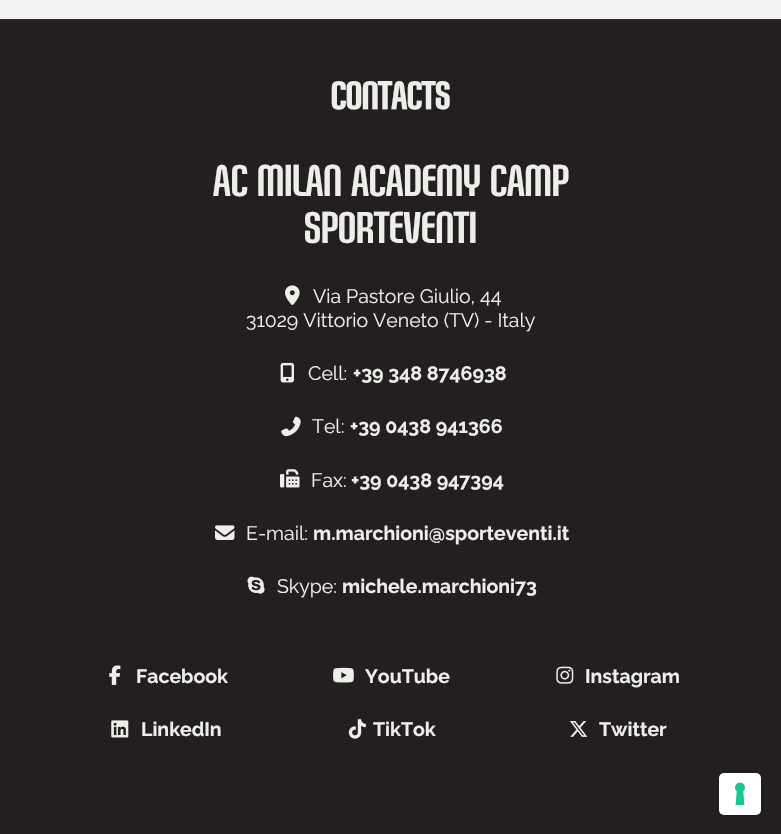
void draw(SkCanvas* canvas) {
	SkPaint paint;
	paint.setAntiAlias(true);
	canvas->clear(0xfff2f2f2);
	paint.setColor(0xff231f20);
	canvas->drawRect(SkRect::MakeXYWH(0, 20, 781, 814), paint);
	paint.setColor(0xff7d0a03);
	canvas->drawRect(SkRect::MakeXYWH(0, 19, 781, 1), paint);
	SkFont f1(fontMgr->matchFamilyStyle("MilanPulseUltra", SkFontStyle(800, SkFontStyle::kNormal_Width, SkFontStyle::kUpright_Slant)), 34.5);
	f1.setSubpixel(true);
	paint.setColor(0xffedede9);
	canvas->drawString("CONTACTS", 331, 109, f1, paint);
	SkFont f2(fontMgr->matchFamilyStyle("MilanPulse", SkFontStyle::Normal()), 39);
	f2.setSubpixel(true);
	canvas->drawString("AC MILAN ACADEMY CAMP", 213, 196, f2, paint);
	canvas->drawString("SPORTEVENTI", 304, 243, f2, paint);
	canvas->drawImageRect(SkImages::DeferredFromEncodedData(SkData::MakeFromFileName("img1.png")), SkRect::MakeXYWH(285, 285, 15, 20), SkSamplingOptions());
	SkFont f3(fontMgr->matchFamilyStyle("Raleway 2", SkFontStyle(100, SkFontStyle::kNormal_Width, SkFontStyle::kUpright_Slant)), 19.5);
	f3.setSubpixel(true);
	canvas->drawString("Via Pastore Giulio, 44", 313, 303, f3, paint);
	canvas->drawString("31029 Vittorio Veneto (TV) - Italy", 246, 327, f3, paint);
	canvas->drawImageRect(SkImages::DeferredFromEncodedData(SkData::MakeFromFileName("img2.png")), SkRect::MakeXYWH(280, 362, 14, 21), SkSamplingOptions());
	canvas->drawString("Cell:", 308, 380, f3, paint);
	SkFont f4(fontMgr->matchFamilyStyle("Raleway", SkFontStyle(100, SkFontStyle::kNormal_Width, SkFontStyle::kUpright_Slant)), 19.5);
	f4.setSubpixel(true);
	canvas->drawString("+39 348 8746938", 353, 380, f4, paint);
	canvas->drawImageRect(SkImages::DeferredFromEncodedData(SkData::MakeFromFileName("img3.png")), SkRect::MakeXYWH(281, 416, 20, 21), SkSamplingOptions());
	canvas->drawString("Tel:", 312, 433, f3, paint);
	canvas->drawString("+39 0438 941366", 350, 433, f4, paint);
	canvas->drawImageRect(SkImages::DeferredFromEncodedData(SkData::MakeFromFileName("img4.png")), SkRect::MakeXYWH(280, 469, 20, 19), SkSamplingOptions());
	canvas->drawString("Fax:", 311, 487, f3, paint);
	canvas->drawString("+39 0438 947394", 351, 487, f4, paint);
	canvas->drawImageRect(SkImages::DeferredFromEncodedData(SkData::MakeFromFileName("img5.png")), SkRect::MakeXYWH(215, 525, 20, 15), SkSamplingOptions());
	canvas->drawString("E-mail:", 246, 540, f3, paint);
	canvas->drawString("m.marchioni@sporteventi.it", 313, 540, f4, paint);
	canvas->drawImageRect(SkImages::DeferredFromEncodedData(SkData::MakeFromFileName("img6.png")), SkRect::MakeXYWH(247, 576, 18, 18), SkSamplingOptions());
	canvas->drawString("Skype:", 277, 593, f3, paint);
	canvas->drawString("michele.marchioni73", 342, 593, f4, paint);
	canvas->drawImageRect(SkImages::DeferredFromEncodedData(SkData::MakeFromFileName("img7.png")), SkRect::MakeXYWH(109, 665, 12, 20), SkSamplingOptions());
	canvas->drawString("Facebook", 136, 683, f4, paint);
	canvas->drawImageRect(SkImages::DeferredFromEncodedData(SkData::MakeFromFileName("img8.png")), SkRect::MakeXYWH(333, 667, 21, 16), SkSamplingOptions());
	canvas->drawString("YouTube", 365, 683, f4, paint);
	canvas->drawImageRect(SkImages::DeferredFromEncodedData(SkData::MakeFromFileName("img9.png")), SkRect::MakeXYWH(556, 666, 18, 18), SkSamplingOptions());
	canvas->drawString("Instagram", 585, 683, f4, paint);
	canvas->drawImageRect(SkImages::DeferredFromEncodedData(SkData::MakeFromFileName("img10.png")), SkRect::MakeXYWH(111, 720, 18, 18), SkSamplingOptions());
	canvas->drawString("LinkedIn", 141, 736, f4, paint);
	canvas->drawImageRect(SkImages::DeferredFromEncodedData(SkData::MakeFromFileName("img11.png")), SkRect::MakeXYWH(348, 719, 18, 20), SkSamplingOptions());
	canvas->drawString("TikTok", 373, 736, f4, paint);
	canvas->drawImageRect(SkImages::DeferredFromEncodedData(SkData::MakeFromFileName("img12.png")), SkRect::MakeXYWH(570, 721, 18, 16), SkSamplingOptions());
	canvas->drawString("Twitter", 599, 736, f4, paint);
	paint.setStroke(true);
	paint.setStrokeWidth(1);
	paint.setColor(0xff1e1a1b);
	canvas->drawRoundRect(SkRect::MakeXYWH(718.5, 771.5, 44, 44), 5.5, 5.5, paint);
	paint.setStroke(false);
	paint.setColor(0xffffffff);
	canvas->drawRoundRect(SkRect::MakeXYWH(719, 773, 42, 42), 5, 5, paint);
	canvas->drawImageRect(SkImages::DeferredFromEncodedData(SkData::MakeFromFileName("img13.png")), SkRect::MakeXYWH(735, 782, 10, 23), SkSamplingOptions());
}
